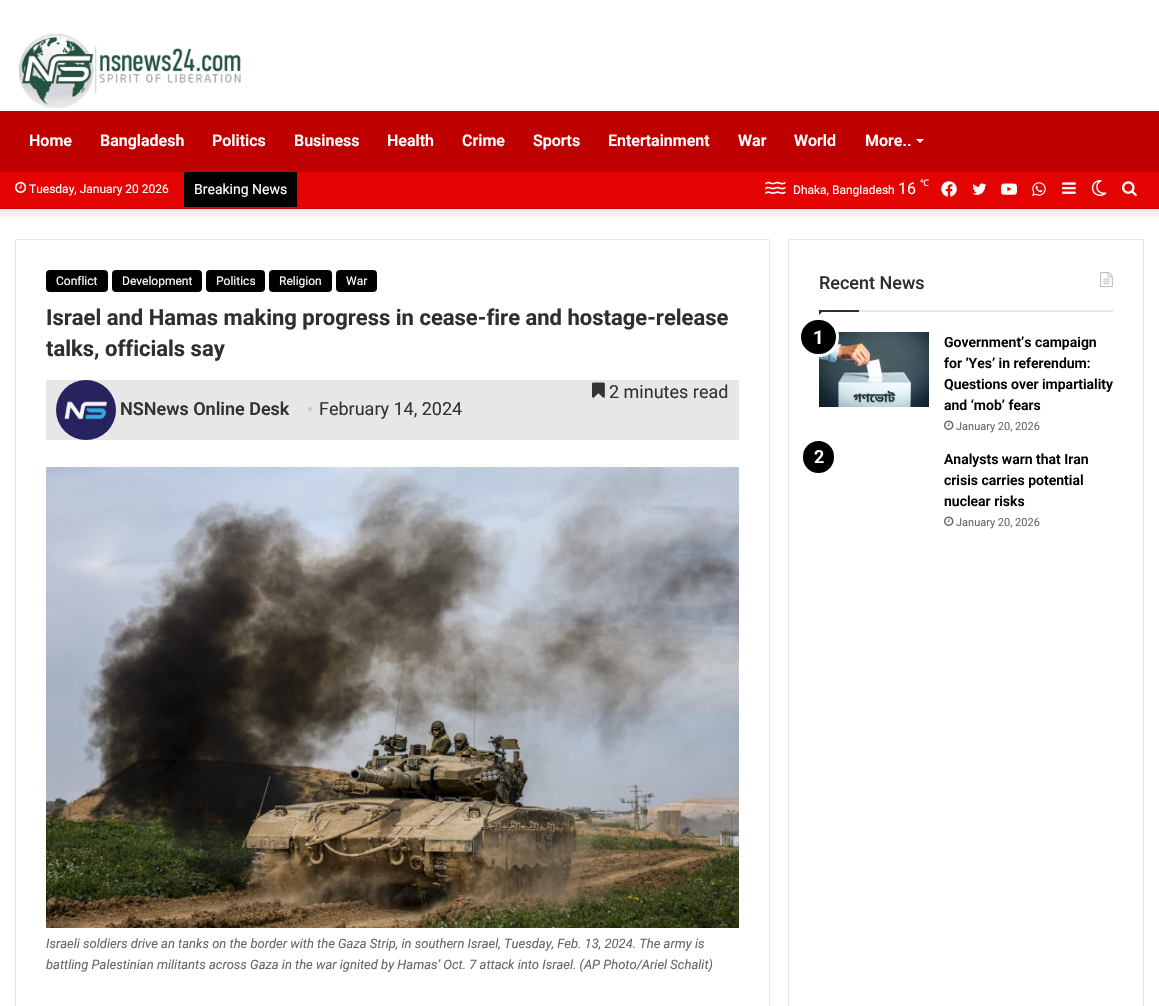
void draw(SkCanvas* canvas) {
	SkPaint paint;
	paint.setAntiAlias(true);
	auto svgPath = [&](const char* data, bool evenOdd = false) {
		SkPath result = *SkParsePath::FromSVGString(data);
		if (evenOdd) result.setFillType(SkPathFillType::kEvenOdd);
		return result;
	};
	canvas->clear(0xffffffff);
	canvas->save();
	canvas->clipRect(SkRect::MakeXYWH(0, 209, 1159, 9));
	paint.setColor(0x1a000000);
	paint.setMaskFilter(SkMaskFilter::MakeBlur(kNormal_SkBlurStyle, 5));
	canvas->drawRect(SkRect::MakeXYWH(-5, -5, 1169, 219), paint);
	paint.setMaskFilter(nullptr);
	canvas->restore();
	canvas->drawImageRect(SkImages::DeferredFromEncodedData(SkData::MakeFromFileName("img1.png")), SkRect::MakeXYWH(19, 33, 222, 76), SkSamplingOptions());
	paint.setColor(0xffbf0000);
	canvas->drawRect(SkRect::MakeXYWH(0, 111, 1159, 60), paint);
	SkFont f1(fontMgr->matchFamilyStyle("Roboto", SkFontStyle(600, SkFontStyle::kNormal_Width, SkFontStyle::kUpright_Slant)), 16);
	f1.setSubpixel(true);
	paint.setColor(0xffffffff);
	canvas->drawString("Home", 29, 146, f1, paint);
	canvas->drawString("Bangladesh", 100, 146, f1, paint);
	canvas->drawString("Politics", 212, 146, f1, paint);
	canvas->drawString("Business", 294, 146, f1, paint);
	canvas->drawString("Health", 387, 146, f1, paint);
	canvas->drawString("Crime", 462, 146, f1, paint);
	canvas->drawString("Sports", 533, 146, f1, paint);
	canvas->drawString("Entertainment", 608, 146, f1, paint);
	canvas->drawString("War", 738, 146, f1, paint);
	canvas->drawString("World", 794, 146, f1, paint);
	canvas->drawString("More..", 865, 146, f1, paint);
	canvas->drawPath(svgPath("M916 139H924L920 143Z"), paint);
	paint.setColor(0xffe30303);
	canvas->drawRect(SkRect::MakeXYWH(0, 172, 1159, 36), paint);
	paint.setColor(0xffcc0303);
	canvas->drawRect(SkRect::MakeXYWH(0, 171, 1159, 1), paint);
	canvas->drawRect(SkRect::MakeXYWH(0, 208, 1159, 1), paint);
	canvas->drawImageRect(SkImages::DeferredFromEncodedData(SkData::MakeFromFileName("img2.png")), SkRect::MakeXYWH(15, 181, 12, 12), SkSamplingOptions());
	SkFont f2(fontMgr->matchFamilyStyle("Roboto", SkFontStyle::Normal()), 12);
	f2.setSubpixel(true);
	paint.setColor(0xffffffff);
	canvas->drawString("Tuesday, January 20 2026", 29, 193, f2, paint);
	paint.setColor(0xff020202);
	canvas->drawRect(SkRect::MakeXYWH(184, 172, 113, 35), paint);
	SkFont f3(fontMgr->matchFamilyStyle("Roboto", SkFontStyle::Normal()), 14);
	f3.setSubpixel(true);
	paint.setColor(0xffffffff);
	canvas->drawString("Breaking News", 194, 194, f3, paint);
	canvas->drawImageRect(SkImages::DeferredFromEncodedData(SkData::MakeFromFileName("img3.png")), SkRect::MakeXYWH(765, 181, 21, 13), SkSamplingOptions());
	canvas->drawString("Dhaka, Bangladesh", 793, 194, f2, paint);
	SkFont f4(fontMgr->matchFamilyStyle("Roboto", SkFontStyle::Normal()), 16);
	f4.setSubpixel(true);
	canvas->drawString("16", 898, 194, f4, paint);
	SkFont f5(fontMgr->matchFamilyStyle("Noto Sans", SkFontStyle::Normal()), 9);
	f5.setSubpixel(true);
	canvas->drawString("℃", 920, 186, f5, paint);
	canvas->drawImageRect(SkImages::DeferredFromEncodedData(SkData::MakeFromFileName("img4.png")), SkRect::MakeXYWH(941, 181, 16, 16), SkSamplingOptions());
	canvas->drawImageRect(SkImages::DeferredFromEncodedData(SkData::MakeFromFileName("img5.png")), SkRect::MakeXYWH(972, 183, 15, 12), SkSamplingOptions());
	canvas->drawImageRect(SkImages::DeferredFromEncodedData(SkData::MakeFromFileName("img6.png")), SkRect::MakeXYWH(1001, 183, 16, 12), SkSamplingOptions());
	canvas->drawImageRect(SkImages::DeferredFromEncodedData(SkData::MakeFromFileName("img7.png")), SkRect::MakeXYWH(1032, 182, 14, 14), SkSamplingOptions());
	canvas->drawImageRect(SkImages::DeferredFromEncodedData(SkData::MakeFromFileName("img8.png")), SkRect::MakeXYWH(1062, 182, 14, 12), SkSamplingOptions());
	canvas->drawImageRect(SkImages::DeferredFromEncodedData(SkData::MakeFromFileName("img9.png")), SkRect::MakeXYWH(1091, 180, 16, 16), SkSamplingOptions());
	canvas->drawImageRect(SkImages::DeferredFromEncodedData(SkData::MakeFromFileName("img10.png")), SkRect::MakeXYWH(1122, 181, 15, 16), SkSamplingOptions());
	paint.setStroke(true);
	paint.setStrokeWidth(1);
	paint.setColor(0xffe5e5e5);
	canvas->drawRoundRect(SkRect::MakeXYWH(15.5, 239.5, 754, 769), 1.5, 1.5, paint);
	paint.setStroke(false);
	paint.setColor(0xff020101);
	canvas->drawRoundRect(SkRect::MakeXYWH(46, 270, 62, 22), 4, 4, paint);
	paint.setColor(0xffffffff);
	canvas->drawString("Conflict", 56, 285, f2, paint);
	paint.setColor(0xff020101);
	canvas->drawRoundRect(SkRect::MakeXYWH(112, 270, 90, 22), 4, 4, paint);
	paint.setColor(0xffffffff);
	canvas->drawString("Development", 122, 285, f2, paint);
	paint.setColor(0xff020101);
	canvas->drawRoundRect(SkRect::MakeXYWH(206, 270, 59, 22), 4, 4, paint);
	paint.setColor(0xffffffff);
	canvas->drawString("Politics", 216, 285, f2, paint);
	paint.setColor(0xff020101);
	canvas->drawRoundRect(SkRect::MakeXYWH(269, 270, 63, 22), 4, 4, paint);
	paint.setColor(0xffffffff);
	canvas->drawString("Religion", 279, 285, f2, paint);
	paint.setColor(0xff020101);
	canvas->drawRoundRect(SkRect::MakeXYWH(336, 270, 41, 22), 4, 4, paint);
	paint.setColor(0xffffffff);
	canvas->drawString("War", 346, 285, f2, paint);
	SkFont f6(fontMgr->matchFamilyStyle("Roboto", SkFontStyle::Bold()), 22);
	f6.setSubpixel(true);
	paint.setColor(0xff2c2f34);
	canvas->drawString("Israel and Hamas making progress in cease-fire and hostage-release", 46, 325, f6, paint);
	canvas->drawString("talks, officials say", 46, 356, f6, paint);
	paint.setColor(0xffe7e7e7);
	canvas->drawRect(SkRect::MakeXYWH(46, 380, 693, 60), paint);
	canvas->drawImageRect(SkImages::DeferredFromEncodedData(SkData::MakeFromFileName("img11.png")), SkRect::MakeXYWH(592, 382, 13, 16), SkSamplingOptions());
	SkFont f7(fontMgr->matchFamilyStyle("Roboto", SkFontStyle::Normal()), 18);
	f7.setSubpixel(true);
	paint.setColor(0xff333333);
	canvas->drawString("2 minutes read", 609, 398, f7, paint);
	canvas->drawImageRect(SkImages::DeferredFromEncodedData(SkData::MakeFromFileName("img12.png")), SkRect::MakeXYWH(56, 380, 60, 60), SkSamplingOptions());
	SkFont f8(fontMgr->matchFamilyStyle("Roboto", SkFontStyle(600, SkFontStyle::kNormal_Width, SkFontStyle::kUpright_Slant)), 18);
	f8.setSubpixel(true);
	canvas->drawString("NSNews Online Desk", 120, 415, f8, paint);
	SkFont f9(fontMgr->matchFamilyStyle("Liberation Serif", SkFontStyle::Normal()), 18);
	f9.setSubpixel(true);
	paint.setColor(0xffcccccc);
	canvas->drawString("•", 307, 415, f9, paint);
	paint.setColor(0xff333333);
	canvas->drawString("February 14, 2024", 319, 415, f7, paint);
	canvas->drawImageRect(SkImages::DeferredFromEncodedData(SkData::MakeFromFileName("img13.png")), SkRect::MakeXYWH(46, 467, 693, 461), SkSamplingOptions());
	SkFont f10(fontMgr->matchFamilyStyle("Roboto", SkFontStyle::Italic()), 13);
	f10.setSubpixel(true);
	paint.setColor(0xff666666);
	canvas->drawString("Israeli soldiers drive an tanks on the border with the Gaza Strip, in southern Israel, Tuesday, Feb. 13, 2024. The army is", 46, 948, f10, paint);
	canvas->drawString("battling Palestinian militants across Gaza in the war ignited by Hamas’ Oct. 7 attack into Israel. (AP Photo/Ariel Schalit)", 46, 969, f10, paint);
	paint.setStroke(true);
	paint.setColor(0xffe5e5e5);
	canvas->drawRoundRect(SkRect::MakeXYWH(788.5, 239.5, 355, 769), 1.5, 1.5, paint);
	paint.setStroke(false);
	paint.setColor(0xffe6e6e6);
	canvas->drawRect(SkRect::MakeXYWH(859, 310, 254, 2), paint);
	SkFont f11(fontMgr->matchFamilyStyle("Roboto", SkFontStyle(500, SkFontStyle::kNormal_Width, SkFontStyle::kUpright_Slant)), 18);
	f11.setSubpixel(true);
	paint.setColor(0xff2c2f34);
	canvas->drawString("Recent News", 819, 289, f11, paint);
	canvas->drawImageRect(SkImages::DeferredFromEncodedData(SkData::MakeFromFileName("img14.png")), SkRect::MakeXYWH(1100, 272, 13, 16), SkSamplingOptions());
	canvas->drawPath(svgPath("M819 310H824L819 315Z"), paint);
	canvas->drawRect(SkRect::MakeXYWH(819, 310, 40, 2), paint);
	canvas->drawImageRect(SkImages::DeferredFromEncodedData(SkData::MakeFromFileName("img15.png")), SkRect::MakeXYWH(819, 332, 110, 75), SkSamplingOptions());
	paint.setColor(0xff000000);
	canvas->drawRoundRect(SkRect::MakeXYWH(799.5, 318.5, 38, 37), 18.5, 18.5, paint);
	paint.setStroke(true);
	paint.setStrokeWidth(3);
	paint.setColor(0xffffffff);
	canvas->drawRoundRect(SkRect::MakeXYWH(799.5, 318.5, 38, 37), 18.5, 18.5, paint);
	SkFont f12(fontMgr->matchFamilyStyle("Roboto", SkFontStyle(600, SkFontStyle::kNormal_Width, SkFontStyle::kUpright_Slant)), 19);
	f12.setSubpixel(true);
	paint.setStroke(false);
	canvas->drawString("1", 813, 344, f12, paint);
	SkFont f13(fontMgr->matchFamilyStyle("Roboto", SkFontStyle(600, SkFontStyle::kNormal_Width, SkFontStyle::kUpright_Slant)), 14);
	f13.setSubpixel(true);
	paint.setColor(0xff020101);
	canvas->drawString("Government’s campaign", 944, 347, f13, paint);
	canvas->drawString("for ‘Yes’ in referendum:", 944, 368, f13, paint);
	canvas->drawString("Questions over impartiality", 944, 389, f13, paint);
	canvas->drawString("and ‘mob’ fears", 944, 410, f13, paint);
	canvas->drawImageRect(SkImages::DeferredFromEncodedData(SkData::MakeFromFileName("img16.png")), SkRect::MakeXYWH(944, 420, 10, 10), SkSamplingOptions());
	SkFont f14(fontMgr->matchFamilyStyle("Roboto", SkFontStyle::Normal()), 11);
	f14.setSubpixel(true);
	paint.setColor(0xff666666);
	canvas->drawString("January 20, 2026", 956, 430, f14, paint);
	paint.setColor(0xff000000);
	canvas->drawRoundRect(SkRect::MakeXYWH(801.5, 439.5, 34, 35), 17, 17, paint);
	paint.setStroke(true);
	paint.setColor(0xffffffff);
	canvas->drawRoundRect(SkRect::MakeXYWH(801.5, 439.5, 34, 35), 17, 17, paint);
	paint.setStroke(false);
	canvas->drawString("2", 814, 463, f8, paint);
	paint.setColor(0xff020101);
	canvas->drawString("Analysts warn that Iran", 944, 464, f13, paint);
	canvas->drawString("crisis carries potential", 944, 485, f13, paint);
	canvas->drawString("nuclear risks", 944, 506, f13, paint);
	canvas->drawImageRect(SkImages::DeferredFromEncodedData(SkData::MakeFromFileName("img16.png")), SkRect::MakeXYWH(944, 516, 10, 10), SkSamplingOptions());
	paint.setColor(0xff666666);
	canvas->drawString("January 20, 2026", 956, 526, f14, paint);
}
